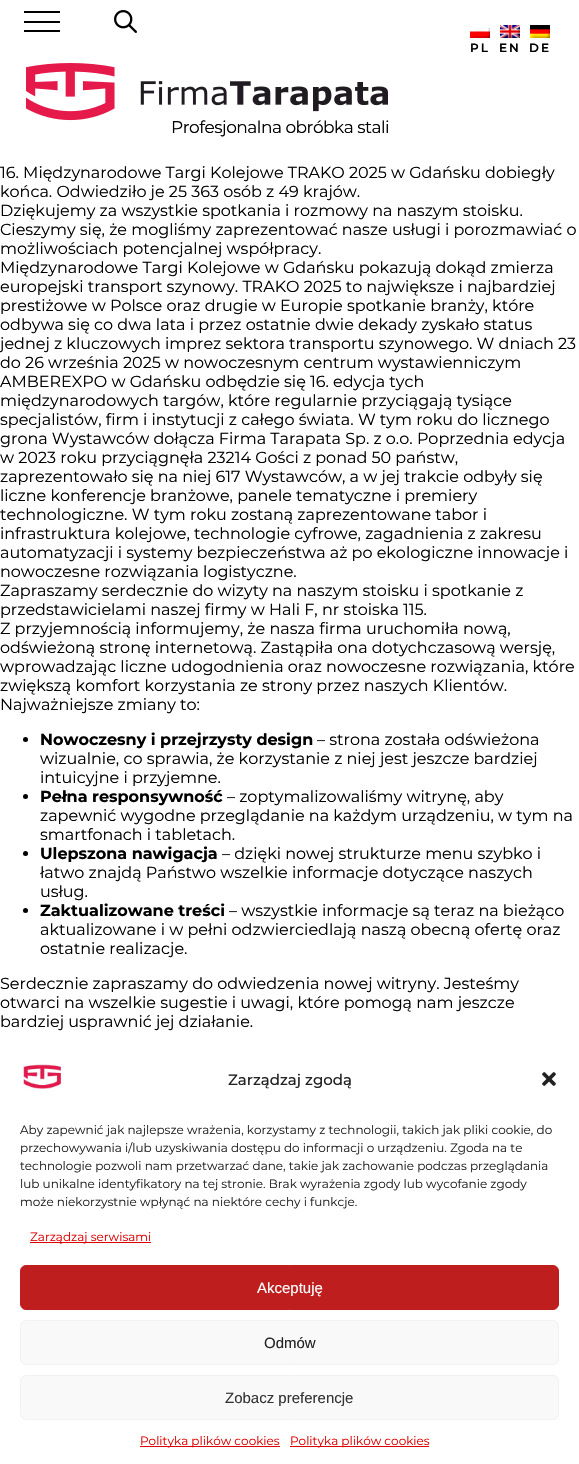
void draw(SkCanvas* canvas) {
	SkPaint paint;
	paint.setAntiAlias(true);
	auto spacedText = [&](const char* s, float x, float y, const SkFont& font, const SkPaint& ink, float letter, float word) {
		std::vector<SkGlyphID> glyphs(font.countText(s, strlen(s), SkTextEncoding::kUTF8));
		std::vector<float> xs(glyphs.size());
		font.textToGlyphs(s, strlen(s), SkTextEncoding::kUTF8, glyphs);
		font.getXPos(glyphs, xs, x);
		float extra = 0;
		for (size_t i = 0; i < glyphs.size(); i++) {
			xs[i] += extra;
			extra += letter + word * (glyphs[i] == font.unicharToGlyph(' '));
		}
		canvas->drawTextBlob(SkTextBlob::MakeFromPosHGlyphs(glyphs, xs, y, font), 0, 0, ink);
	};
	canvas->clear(0xffffffff);
	paint.setColor(0xff000000);
	canvas->drawRect(SkRect::MakeXYWH(24, 11, 36, 2), paint);
	canvas->drawRect(SkRect::MakeXYWH(24, 21, 36, 2), paint);
	canvas->drawRect(SkRect::MakeXYWH(24, 30, 36, 2), paint);
	canvas->drawImageRect(SkImages::DeferredFromEncodedData(SkData::MakeFromFileName("img1.png")), SkRect::MakeXYWH(114, 10, 23, 23), SkSamplingOptions());
	canvas->drawImageRect(SkImages::DeferredFromEncodedData(SkData::MakeFromFileName("img2.png")), SkRect::MakeXYWH(470, 27, 20, 11), SkSamplingOptions());
	SkFont f1(fontMgr->matchFamilyStyle("Montserrat", SkFontStyle(600, SkFontStyle::kNormal_Width, SkFontStyle::kUpright_Slant)), 12);
	f1.setSubpixel(true);
	spacedText("PL", 470, 52, f1, paint, 2, 0);
	canvas->drawImageRect(SkImages::DeferredFromEncodedData(SkData::MakeFromFileName("img3.png")), SkRect::MakeXYWH(500, 25, 20, 13), SkSamplingOptions());
	spacedText("EN", 499, 52, f1, paint, 2, 0);
	canvas->drawImageRect(SkImages::DeferredFromEncodedData(SkData::MakeFromFileName("img4.png")), SkRect::MakeXYWH(530, 25, 20, 13), SkSamplingOptions());
	spacedText("DE", 529, 52, f1, paint, 2, 0);
	canvas->drawImageRect(SkImages::DeferredFromEncodedData(SkData::MakeFromFileName("img5.png")), SkRect::MakeXYWH(26, 63, 362, 58), SkSamplingOptions());
	SkFont f2(fontMgr->matchFamilyStyle("Montserrat", SkFontStyle::Normal()), 17);
	f2.setSubpixel(true);
	spacedText("Profesjonalna obróbka stali", 171, 133, f2, paint, -0.5, 0);
	SkFont f3(fontMgr->matchFamilyStyle("Montserrat", SkFontStyle::Normal()), 16);
	f3.setSubpixel(true);
	canvas->drawString("16. Międzynarodowe Targi Kolejowe TRAKO 2025 w Gdańsku dobiegły", 0, 178, f3, paint);
	canvas->drawString("końca. Odwiedziło je 25 363 osób z 49 krajów.", 0, 197, f3, paint);
	canvas->drawString("Dziękujemy za wszystkie spotkania i rozmowy na naszym stoisku.", 0, 216, f3, paint);
	canvas->drawString("Cieszymy się, że mogliśmy zaprezentować nasze usługi i porozmawiać o", 0, 235, f3, paint);
	canvas->drawString("możliwościach potencjalnej współpracy.", 0, 254, f3, paint);
	canvas->drawString("Międzynarodowe Targi Kolejowe w Gdańsku pokazują dokąd zmierza", 0, 273, f3, paint);
	canvas->drawString("europejski transport szynowy. TRAKO 2025 to największe i najbardziej", 0, 292, f3, paint);
	canvas->drawString("prestiżowe w Polsce oraz drugie w Europie spotkanie branży, które", 0, 311, f3, paint);
	canvas->drawString("odbywa się co dwa lata i przez ostatnie dwie dekady zyskało status", 0, 330, f3, paint);
	canvas->drawString("jednej z kluczowych imprez sektora transportu szynowego. W dniach 23", 0, 349, f3, paint);
	canvas->drawString("do 26 września 2025 w nowoczesnym centrum wystawienniczym", 0, 368, f3, paint);
	canvas->drawString("AMBEREXPO w Gdańsku odbędzie się 16. edycja tych", 0, 387, f3, paint);
	canvas->drawString("międzynarodowych targów, które regularnie przyciągają tysiące", 0, 406, f3, paint);
	canvas->drawString("specjalistów, firm i instytucji z całego świata. W tym roku do licznego", 0, 425, f3, paint);
	canvas->drawString("grona Wystawców dołącza Firma Tarapata Sp. z o.o. Poprzednia edycja", 0, 444, f3, paint);
	canvas->drawString("w 2023 roku przyciągnęła 23214 Gości z ponad 50 państw,", 0, 463, f3, paint);
	canvas->drawString("zaprezentowało się na niej 617 Wystawców, a w jej trakcie odbyły się", 0, 482, f3, paint);
	canvas->drawString("liczne konferencje branżowe, panele tematyczne i premiery", 0, 501, f3, paint);
	canvas->drawString("technologiczne. W tym roku zostaną zaprezentowane tabor i", 0, 520, f3, paint);
	canvas->drawString("infrastruktura kolejowe, technologie cyfrowe, zagadnienia z zakresu", 0, 539, f3, paint);
	canvas->drawString("automatyzacji i systemy bezpieczeństwa aż po ekologiczne innowacje i", 0, 558, f3, paint);
	canvas->drawString("nowoczesne rozwiązania logistyczne.", 0, 577, f3, paint);
	canvas->drawString("Zapraszamy serdecznie do wizyty na naszym stoisku i spotkanie z", 0, 596, f3, paint);
	canvas->drawString("przedstawicielami naszej firmy w Hali F, nr stoiska 115.", 0, 615, f3, paint);
	canvas->drawString("Z przyjemnością informujemy, że nasza firma uruchomiła nową,", 0, 634, f3, paint);
	canvas->drawString("odświeżoną stronę internetową. Zastąpiła ona dotychczasową wersję,", 0, 653, f3, paint);
	canvas->drawString("wprowadzając liczne udogodnienia oraz nowoczesne rozwiązania, które", 0, 672, f3, paint);
	canvas->drawString("zwiększą komfort korzystania ze strony przez naszych Klientów.", 0, 691, f3, paint);
	canvas->drawString("Najważniejsze zmiany to:", 0, 710, f3, paint);
	canvas->drawCircle(25.5, 739.5, 2.5, paint);
	SkFont f4(fontMgr->matchFamilyStyle("Montserrat", SkFontStyle::Bold()), 16);
	f4.setSubpixel(true);
	canvas->drawString("Nowoczesny i przejrzysty design", 40, 745, f4, paint);
	canvas->drawString("– strona została odświeżona", 317, 745, f3, paint);
	canvas->drawString("wizualnie, co sprawia, że korzystanie z niej jest jeszcze bardziej", 40, 764, f3, paint);
	canvas->drawString("intuicyjne i przyjemne.", 40, 783, f3, paint);
	canvas->drawCircle(25.5, 796.5, 2.5, paint);
	canvas->drawString("Pełna responsywność", 40, 802, f4, paint);
	canvas->drawString("– zoptymalizowaliśmy witrynę, aby", 227, 802, f3, paint);
	canvas->drawString("zapewnić wygodne przeglądanie na każdym urządzeniu, w tym na", 40, 821, f3, paint);
	canvas->drawString("smartfonach i tabletach.", 40, 840, f3, paint);
	canvas->drawCircle(25.5, 853.5, 2.5, paint);
	canvas->drawString("Ulepszona nawigacja", 40, 859, f4, paint);
	canvas->drawString("– dzięki nowej strukturze menu szybko i", 222, 859, f3, paint);
	canvas->drawString("łatwo znajdą Państwo wszelkie informacje dotyczące naszych", 40, 878, f3, paint);
	canvas->drawString("usług.", 40, 897, f3, paint);
	canvas->drawCircle(25.5, 910.5, 2.5, paint);
	canvas->drawString("Zaktualizowane treści", 40, 916, f4, paint);
	canvas->drawString("– wszystkie informacje są teraz na bieżąco", 229, 916, f3, paint);
	canvas->drawString("aktualizowane i w pełni odzwierciedlają naszą obecną ofertę oraz", 40, 935, f3, paint);
	canvas->drawString("ostatnie realizacje.", 40, 954, f3, paint);
	canvas->drawString("Serdecznie zapraszamy do odwiedzenia nowej witryny. Jesteśmy", 0, 989, f3, paint);
	canvas->drawString("otwarci na wszelkie sugestie i uwagi, które pomogą nam jeszcze", 0, 1008, f3, paint);
	canvas->drawString("bardziej usprawnić jej działanie.", 0, 1027, f3, paint);
	canvas->drawImageRect(SkImages::DeferredFromEncodedData(SkData::MakeFromFileName("img6.png")), SkRect::MakeXYWH(23, 1064, 39, 25), SkSamplingOptions());
	SkFont f5(fontMgr->matchFamilyStyle("Montserrat", SkFontStyle(500, SkFontStyle::kNormal_Width, SkFontStyle::kUpright_Slant)), 15);
	f5.setSubpixel(true);
	paint.setColor(0xff222222);
	canvas->drawString("Zarządzaj zgodą", 228, 1085, f5, paint);
	canvas->drawImageRect(SkImages::DeferredFromEncodedData(SkData::MakeFromFileName("img7.png")), SkRect::MakeXYWH(542, 1072, 14, 14), SkSamplingOptions());
	SkFont f6(fontMgr->matchFamilyStyle("Montserrat", SkFontStyle::Normal()), 12);
	f6.setSubpixel(true);
	canvas->drawString("Aby zapewnić jak najlepsze wrażenia, korzystamy z technologii, takich jak pliki cookie, do", 20, 1134, f6, paint);
	canvas->drawString("przechowywania i/lub uzyskiwania dostępu do informacji o urządzeniu. Zgoda na te", 20, 1152, f6, paint);
	canvas->drawString("technologie pozwoli nam przetwarzać dane, takie jak zachowanie podczas przeglądania", 20, 1170, f6, paint);
	canvas->drawString("lub unikalne identyfikatory na tej stronie. Brak wyrażenia zgody lub wycofanie zgody", 20, 1188, f6, paint);
	canvas->drawString("może niekorzystnie wpłynąć na niektóre cechy i funkcje.", 20, 1206, f6, paint);
	paint.setColor(0xffde0000);
	canvas->drawRect(SkRect::MakeXYWH(30, 1242, 121, 1), paint);
	canvas->drawString("Zarządzaj serwisami", 30, 1241, f6, paint);
	paint.setColor(0xffbe1e1e);
	canvas->drawRoundRect(SkRect::MakeXYWH(20.5, 1265.5, 538, 44), 5.5, 5.5, paint);
	paint.setStroke(true);
	paint.setStrokeWidth(1);
	canvas->drawRoundRect(SkRect::MakeXYWH(20.5, 1265.5, 538, 44), 5.5, 5.5, paint);
	SkFont f7(fontMgr->matchFamilyStyle("Liberation Sans", SkFontStyle::Normal()), 15);
	f7.setSubpixel(true);
	paint.setStroke(false);
	paint.setColor(0xffffffff);
	canvas->drawString("Akceptuję", 257, 1293, f7, paint);
	paint.setColor(0xfff9f9f9);
	canvas->drawRoundRect(SkRect::MakeXYWH(20.5, 1320.5, 538, 44), 5.5, 5.5, paint);
	paint.setStroke(true);
	paint.setColor(0xfff2f2f2);
	canvas->drawRoundRect(SkRect::MakeXYWH(20.5, 1320.5, 538, 44), 5.5, 5.5, paint);
	paint.setStroke(false);
	paint.setColor(0xff222222);
	canvas->drawString("Odmów", 264, 1348, f7, paint);
	paint.setColor(0xfff9f9f9);
	canvas->drawRoundRect(SkRect::MakeXYWH(20.5, 1375.5, 538, 44), 5.5, 5.5, paint);
	paint.setStroke(true);
	paint.setColor(0xfff2f2f2);
	canvas->drawRoundRect(SkRect::MakeXYWH(20.5, 1375.5, 538, 44), 5.5, 5.5, paint);
	paint.setStroke(false);
	paint.setColor(0xff333333);
	canvas->drawString("Zobacz preferencje", 225, 1403, f7, paint);
	paint.setColor(0xffde0000);
	canvas->drawRect(SkRect::MakeXYWH(140, 1446, 140, 1), paint);
	canvas->drawString("Polityka plików cookies", 140, 1445, f6, paint);
	canvas->drawRect(SkRect::MakeXYWH(290, 1446, 139, 1), paint);
	canvas->drawString("Polityka plików cookies", 290, 1445, f6, paint);
}
